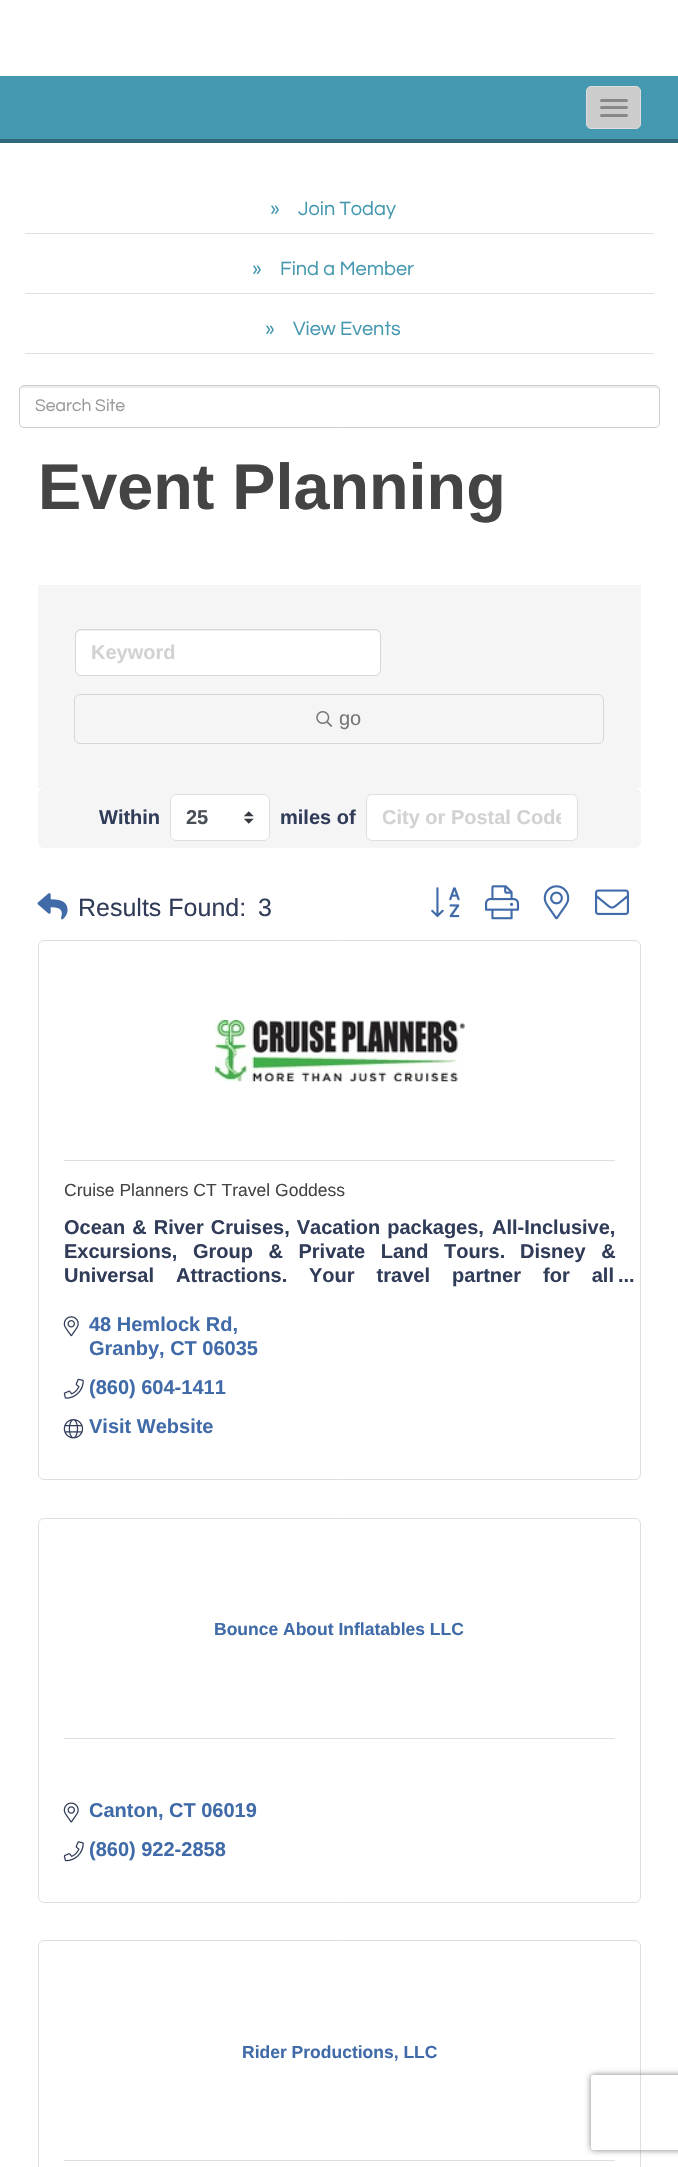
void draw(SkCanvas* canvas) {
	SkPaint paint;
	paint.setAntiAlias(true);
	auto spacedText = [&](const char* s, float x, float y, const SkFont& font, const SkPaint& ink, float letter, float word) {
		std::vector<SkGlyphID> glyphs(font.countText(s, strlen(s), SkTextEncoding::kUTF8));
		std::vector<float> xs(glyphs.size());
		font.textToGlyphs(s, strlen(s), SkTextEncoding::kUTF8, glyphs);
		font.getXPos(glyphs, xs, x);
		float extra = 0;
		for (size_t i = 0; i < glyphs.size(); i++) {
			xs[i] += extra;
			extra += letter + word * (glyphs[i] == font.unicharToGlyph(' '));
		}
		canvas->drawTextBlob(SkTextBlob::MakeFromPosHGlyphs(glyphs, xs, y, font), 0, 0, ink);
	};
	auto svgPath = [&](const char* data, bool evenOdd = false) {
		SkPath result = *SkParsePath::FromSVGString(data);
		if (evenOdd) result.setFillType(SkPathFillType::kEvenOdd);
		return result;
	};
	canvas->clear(0xffffffff);
	paint.setColor(0xff4498af);
	canvas->drawRect(SkRect::MakeXYWH(0, 76, 678, 63), paint);
	paint.setColor(0xff306a7a);
	canvas->drawRect(SkRect::MakeXYWH(0, 139, 678, 4), paint);
	paint.setColor(0xffcccccc);
	canvas->drawRoundRect(SkRect::MakeXYWH(586.5, 86.5, 54, 42), 4.5, 4.5, paint);
	paint.setStroke(true);
	paint.setStrokeWidth(1);
	paint.setColor(0xffdddddd);
	canvas->drawRoundRect(SkRect::MakeXYWH(586.5, 86.5, 54, 42), 4.5, 4.5, paint);
	paint.setStroke(false);
	paint.setColor(0xff888888);
	canvas->drawRoundRect(SkRect::MakeXYWH(600, 99, 28, 3), 1.5, 1.5, paint);
	canvas->drawRoundRect(SkRect::MakeXYWH(600, 106, 28, 3), 1.5, 1.5, paint);
	canvas->drawRoundRect(SkRect::MakeXYWH(600, 114, 28, 3), 1.5, 1.5, paint);
	paint.setColor(0xffe0e0e0);
	canvas->drawRect(SkRect::MakeXYWH(25, 233, 629, 1), paint);
	SkFont f1(fontMgr->matchFamilyStyle("Questrial", SkFontStyle::Normal()), 20);
	f1.setSubpixel(true);
	paint.setColor(0xff4498af);
	canvas->drawString("»", 270, 215, f1, paint);
	canvas->drawString("Join Today", 298, 215, f1, paint);
	paint.setColor(0xffe0e0e0);
	canvas->drawRect(SkRect::MakeXYWH(25, 293, 629, 1), paint);
	paint.setColor(0xff4498af);
	canvas->drawString("»", 252, 275, f1, paint);
	canvas->drawString("Find a Member", 280, 275, f1, paint);
	paint.setColor(0xffe0e0e0);
	canvas->drawRect(SkRect::MakeXYWH(25, 353, 629, 1), paint);
	paint.setColor(0xff4498af);
	canvas->drawString("»", 265, 335, f1, paint);
	canvas->drawString("View Events", 293, 335, f1, paint);
	paint.setColor(0xffececec);
	canvas->drawPath(svgPath("M24 388H655C657 388 659 389 659 391C659 388 658 386 655 386H24C21 386 20 388 20 391C20 389 22 388 24 388Z"), paint);
	paint.setStroke(true);
	paint.setColor(0xffcccccc);
	canvas->drawRoundRect(SkRect::MakeXYWH(19.5, 385.5, 640, 42), 4.5, 4.5, paint);
	SkFont f2(fontMgr->matchFamilyStyle("Questrial", SkFontStyle::Normal()), 17.5);
	f2.setSubpixel(true);
	paint.setStroke(false);
	paint.setColor(0xff999999);
	canvas->drawString("Search Site", 35, 411, f2, paint);
	SkFont f3(fontMgr->matchFamilyStyle("Liberation Sans", SkFontStyle::Bold()), 64.75);
	f3.setSubpixel(true);
	paint.setColor(0xff444444);
	canvas->drawString("Event Planning", 38, 509, f3, paint);
	paint.setColor(0xfff5f5f5);
	canvas->drawRect(SkRect::MakeXYWH(38, 585, 603, 203), paint);
	paint.setColor(0xffffffff);
	canvas->drawRoundRect(SkRect::MakeXYWH(76, 630, 304, 45), 5, 5, paint);
	paint.setColor(0x12000000);
	canvas->drawPath(svgPath("M81 631H375C378 631 380 633 380 636C380 633 378 630 375 630H81C78 630 76 633 76 636C76 633 78 631 81 631Z"), paint);
	paint.setStroke(true);
	paint.setColor(0x1f000000);
	canvas->drawRoundRect(SkRect::MakeXYWH(75.5, 629.5, 305, 46), 5.5, 5.5, paint);
	SkFont f4(fontMgr->matchFamilyStyle("Liberation Sans", SkFontStyle::Bold()), 20);
	f4.setSubpixel(true);
	paint.setStroke(false);
	paint.setColor(0xffd2d2d2);
	canvas->drawString("Keyword", 91, 659, f4, paint);
	paint.setStroke(true);
	paint.setColor(0xffd6d6d6);
	canvas->drawRoundRect(SkRect::MakeXYWH(74.5, 694.5, 529, 49), 5.5, 5.5, paint);
	canvas->drawImageRect(SkImages::DeferredFromEncodedData(SkData::MakeFromFileName("img1.png")), SkRect::MakeXYWH(316, 711, 17, 16), SkSamplingOptions());
	SkFont f5(fontMgr->matchFamilyStyle("Liberation Sans", SkFontStyle::Normal()), 20);
	f5.setSubpixel(true);
	paint.setStroke(false);
	paint.setColor(0xff777777);
	canvas->drawString("go", 339, 725, f5, paint);
	paint.setColor(0xfff5f5f5);
	canvas->drawRoundRect(SkRect::MakeXYWH(38, 788, 603, 60), 6, 6, paint);
	paint.setColor(0xff313c59);
	canvas->drawString("Within", 99, 824, f4, paint);
	paint.setColor(0xffffffff);
	canvas->drawRoundRect(SkRect::MakeXYWH(170, 794, 100, 47), 6, 6, paint);
	canvas->drawImageRect(SkImages::DeferredFromEncodedData(SkData::MakeFromFileName("img2.png")), SkRect::MakeXYWH(244, 811, 10, 13), SkSamplingOptions());
	paint.setStroke(true);
	paint.setColor(0xffdfdfdf);
	canvas->drawRoundRect(SkRect::MakeXYWH(170.5, 794.5, 99, 46), 5.5, 5.5, paint);
	paint.setStroke(false);
	paint.setColor(0xff495057);
	canvas->drawString("25", 186, 824, f4, paint);
	paint.setColor(0xff313c59);
	canvas->drawString("miles of", 280, 824, f4, paint);
	paint.setColor(0xffffffff);
	canvas->drawRoundRect(SkRect::MakeXYWH(366.5, 794.5, 211, 46), 5.5, 5.5, paint);
	paint.setStroke(true);
	paint.setColor(0xffdfdfdf);
	canvas->drawRoundRect(SkRect::MakeXYWH(366.5, 794.5, 211, 46), 5.5, 5.5, paint);
	canvas->save();
	canvas->clipRect(SkRect::MakeXYWH(383, 806, 178, 23));
	paint.setStroke(false);
	paint.setColor(0xffd2d2d2);
	canvas->drawString("City or Postal Code", 382, 824, f4, paint);
	canvas->restore();
	canvas->drawImageRect(SkImages::DeferredFromEncodedData(SkData::MakeFromFileName("img3.png")), SkRect::MakeXYWH(37, 893, 31, 27), SkSamplingOptions());
	SkFont f6(fontMgr->matchFamilyStyle("Liberation Sans", SkFontStyle::Normal()), 25);
	f6.setSubpixel(true);
	paint.setColor(0xff313c59);
	canvas->drawString("Results Found:", 78, 916, f6, paint);
	canvas->drawString("3", 258, 916, f6, paint);
	canvas->drawImageRect(SkImages::DeferredFromEncodedData(SkData::MakeFromFileName("img4.png")), SkRect::MakeXYWH(431, 887, 29, 31), SkSamplingOptions());
	canvas->drawImageRect(SkImages::DeferredFromEncodedData(SkData::MakeFromFileName("img5.png")), SkRect::MakeXYWH(485, 885, 34, 35), SkSamplingOptions());
	canvas->drawImageRect(SkImages::DeferredFromEncodedData(SkData::MakeFromFileName("img6.png")), SkRect::MakeXYWH(543, 885, 27, 35), SkSamplingOptions());
	canvas->drawImageRect(SkImages::DeferredFromEncodedData(SkData::MakeFromFileName("img7.png")), SkRect::MakeXYWH(595, 889, 34, 26), SkSamplingOptions());
	paint.setStroke(true);
	paint.setColor(0xffdfdfdf);
	canvas->drawRoundRect(SkRect::MakeXYWH(38.5, 940.5, 602, 539), 5.5, 5.5, paint);
	canvas->drawImageRect(SkImages::DeferredFromEncodedData(SkData::MakeFromFileName("img8.png")), SkRect::MakeXYWH(215, 1020, 250, 62), SkSamplingOptions());
	paint.setStroke(false);
	canvas->drawRect(SkRect::MakeXYWH(64, 1160, 551, 1), paint);
	SkFont f7(fontMgr->matchFamilyStyle("Liberation Sans", SkFontStyle::Normal()), 17.5);
	f7.setSubpixel(true);
	paint.setColor(0xff444444);
	canvas->drawString("Cruise Planners CT Travel Goddess", 64, 1196, f7, paint);
	paint.setColor(0xff313c59);
	spacedText("Ocean & River Cruises, Vacation packages,", 64, 1234, f4, paint, 0, 1.5);
	canvas->drawString("All-Inclusive,", 492, 1234, f4, paint);
	spacedText("Excursions, Group & Private Land Tours.", 64, 1258, f4, paint, 0, 10);
	spacedText("Disney &", 520, 1258, f4, paint, 0, 10);
	spacedText("Universal Attractions.", 64, 1282, f4, paint, 0, 16.5);
	spacedText("Your travel partner for all", 309, 1282, f4, paint, 0, 16.5);
	canvas->drawString("...", 618, 1282, f4, paint);
	canvas->drawImageRect(SkImages::DeferredFromEncodedData(SkData::MakeFromFileName("img9.png")), SkRect::MakeXYWH(63, 1316, 16, 21), SkSamplingOptions());
	paint.setColor(0xff406ba8);
	canvas->drawString("48 Hemlock Rd,", 89, 1331, f4, paint);
	canvas->drawString("Granby, CT 06035", 89, 1355, f4, paint);
	canvas->drawImageRect(SkImages::DeferredFromEncodedData(SkData::MakeFromFileName("img10.png")), SkRect::MakeXYWH(63, 1378, 21, 21), SkSamplingOptions());
	canvas->drawString("(860) 604-1411", 89, 1394, f4, paint);
	canvas->drawImageRect(SkImages::DeferredFromEncodedData(SkData::MakeFromFileName("img11.png")), SkRect::MakeXYWH(63, 1419, 21, 20), SkSamplingOptions());
	canvas->drawString("Visit Website", 89, 1433, f4, paint);
	paint.setStroke(true);
	paint.setColor(0xffdfdfdf);
	canvas->drawRoundRect(SkRect::MakeXYWH(38.5, 1518.5, 602, 384), 5.5, 5.5, paint);
	SkFont f8(fontMgr->matchFamilyStyle("Liberation Sans", SkFontStyle::Bold()), 17.5);
	f8.setSubpixel(true);
	paint.setStroke(false);
	paint.setColor(0xff406ba8);
	canvas->drawString("Bounce About Inflatables LLC", 214, 1635, f8, paint);
	paint.setColor(0xffdfdfdf);
	canvas->drawRect(SkRect::MakeXYWH(64, 1738, 551, 1), paint);
	canvas->drawImageRect(SkImages::DeferredFromEncodedData(SkData::MakeFromFileName("img12.png")), SkRect::MakeXYWH(63, 1802, 16, 21), SkSamplingOptions());
	paint.setColor(0xff406ba8);
	canvas->drawString("Canton, CT 06019", 89, 1817, f4, paint);
	canvas->drawImageRect(SkImages::DeferredFromEncodedData(SkData::MakeFromFileName("img13.png")), SkRect::MakeXYWH(63, 1841, 21, 21), SkSamplingOptions());
	canvas->drawString("(860) 922-2858", 89, 1856, f4, paint);
	paint.setStroke(true);
	paint.setColor(0xffdfdfdf);
	canvas->drawRoundRect(SkRect::MakeXYWH(38.5, 1940.5, 602, 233), 5.5, 5.5, paint);
	paint.setStroke(false);
	paint.setColor(0xff406ba8);
	canvas->drawString("Rider Productions, LLC", 242, 2058, f8, paint);
	paint.setColor(0xffdfdfdf);
	canvas->drawRect(SkRect::MakeXYWH(64, 2160, 551, 1), paint);
	canvas->save();
	canvas->clipPath(svgPath("M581 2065H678V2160H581ZM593.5 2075H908.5C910 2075 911 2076 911 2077.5V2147.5C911 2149 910 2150 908.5 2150H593.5C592 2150 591 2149 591 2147.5V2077.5C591 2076 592 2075 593.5 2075Z", true), true);
	paint.setColor(0xff808080);
	paint.setMaskFilter(SkMaskFilter::MakeBlur(kNormal_SkBlurStyle, 3));
	canvas->drawRoundRect(SkRect::MakeXYWH(591, 2075, 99, 75), 2.5, 2.5, paint);
	paint.setMaskFilter(nullptr);
	canvas->restore();
}
